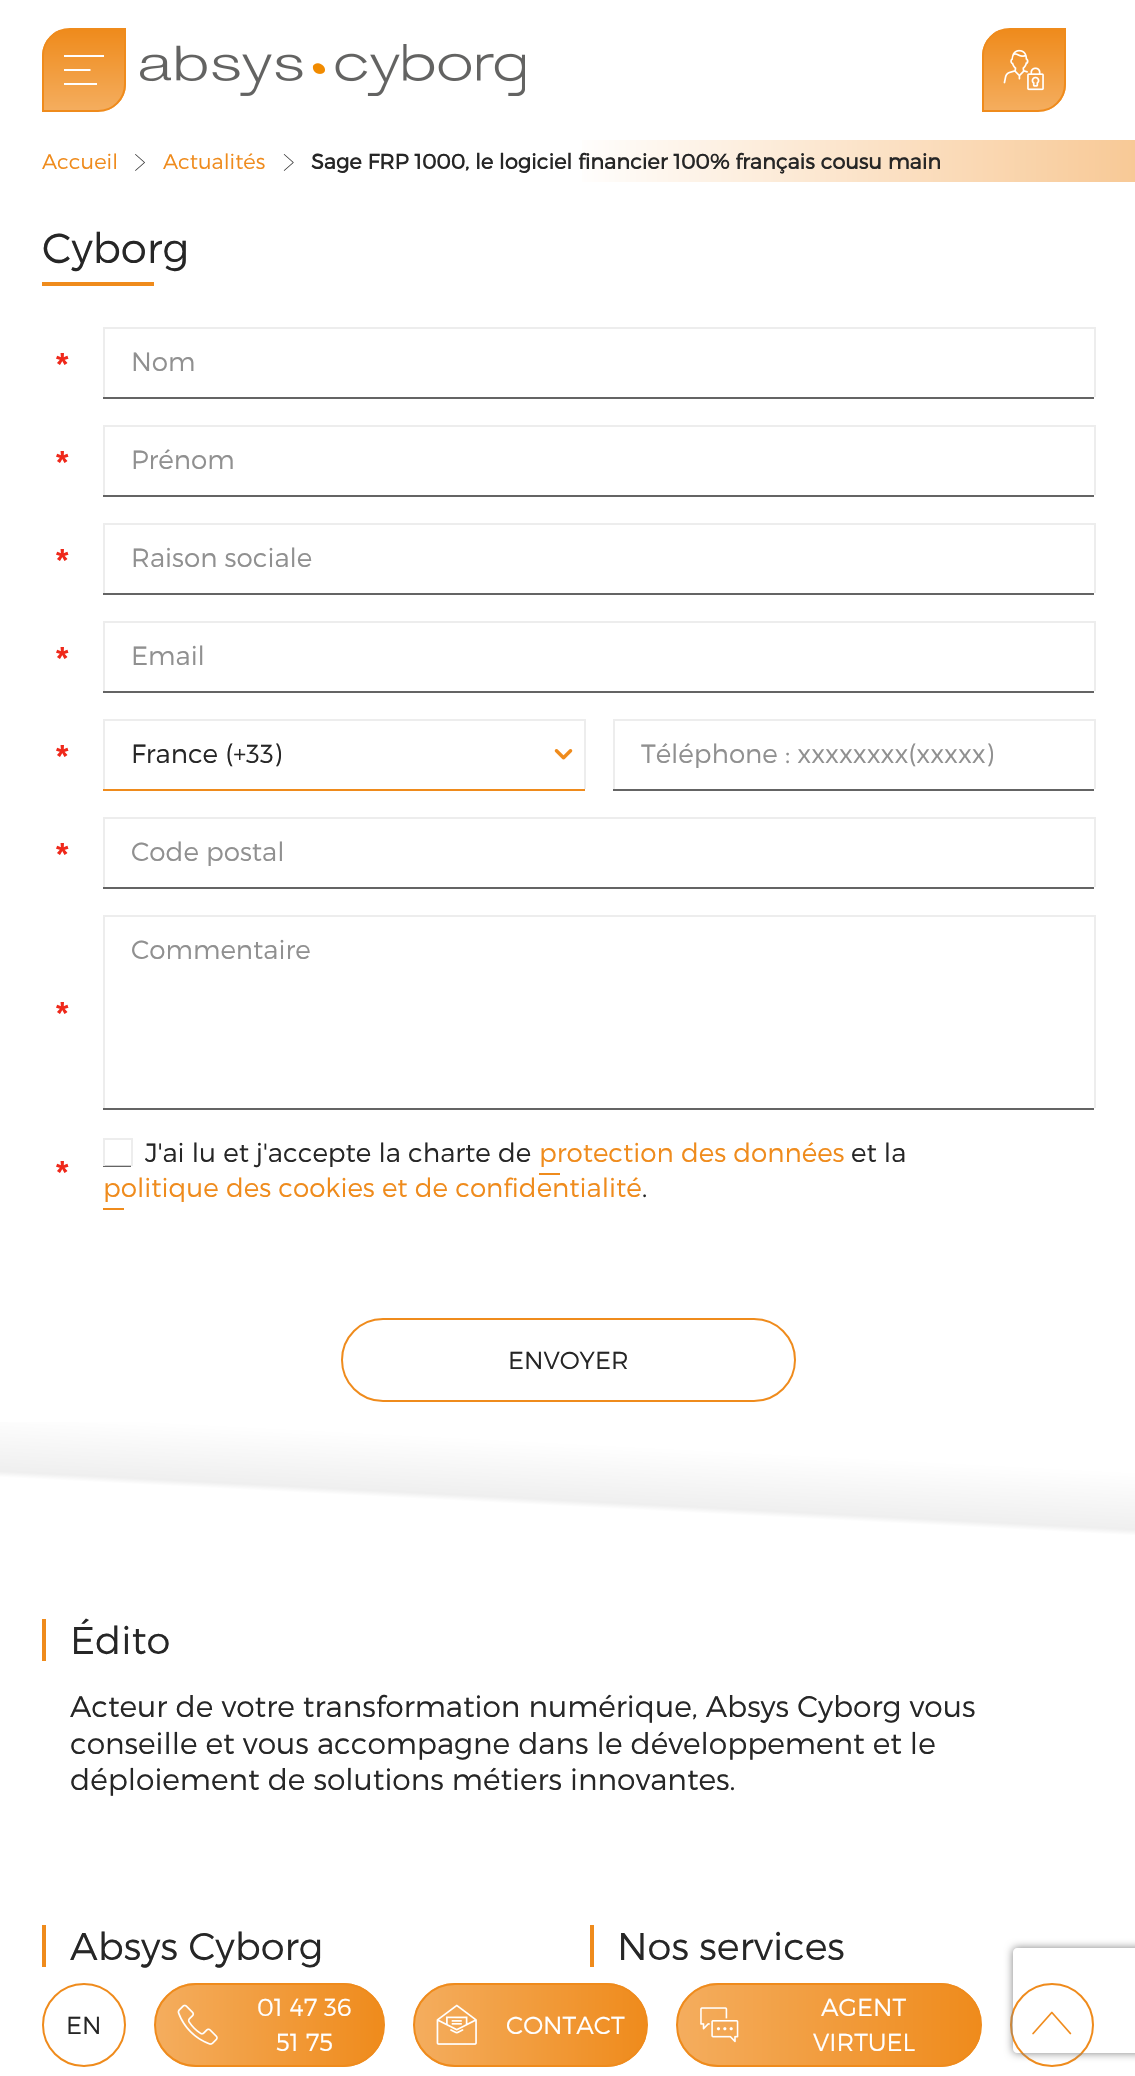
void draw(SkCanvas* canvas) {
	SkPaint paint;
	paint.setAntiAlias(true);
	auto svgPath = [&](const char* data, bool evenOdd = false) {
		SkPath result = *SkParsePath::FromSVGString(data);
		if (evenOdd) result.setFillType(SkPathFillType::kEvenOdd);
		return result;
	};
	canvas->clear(0xffffffff);
	canvas->save();
	canvas->clipPath(svgPath("M70 28H126V84C126 99.5 113.5 112 98 112H42V56C42 40.5 54.5 28 70 28Z"), true);
	{
		const SkColor colors[] = {0xffef8b1c, 0xfff4ad5e};
		const float stops[] = {0, 1};
		const SkPoint ends[] = {{84, 30}, {84, 110}};
		paint.setShader(SkGradientShader::MakeLinear(ends, colors, stops, 2, SkTileMode::kClamp));
		paint.setAlpha(255);
	}
	canvas->drawRect(SkRect::MakeXYWH(42, 30, 84, 80), paint);
	canvas->restore();
	paint.setStroke(true);
	paint.setStrokeWidth(2);
	paint.setShader(nullptr);
	paint.setColor(0xffef8b1c);
	canvas->drawPath(svgPath("M70 29H125V84C125 99 113 111 98 111H43V56C43 41 55 29 70 29Z"), paint);
	paint.setStroke(false);
	paint.setColor(0xffffffff);
	canvas->drawPath(svgPath("M64 55H104V57H64ZM64 83H97V85H64ZM64 69H90.5V71H64Z"), paint);
	canvas->drawImageRect(SkImages::DeferredFromEncodedData(SkData::MakeFromFileName("img1.png")), SkRect::MakeXYWH(140, 44, 385, 52), SkSamplingOptions());
	canvas->save();
	canvas->clipPath(svgPath("M1010 28H1066V84C1066 99.5 1053.5 112 1038 112H982V56C982 40.5 994.5 28 1010 28Z"), true);
	{
		const SkColor colors[] = {0xffef8b1c, 0xfff4ad5e};
		const float stops[] = {0, 1};
		const SkPoint ends[] = {{1024, 30}, {1024, 110}};
		paint.setShader(SkGradientShader::MakeLinear(ends, colors, stops, 2, SkTileMode::kClamp));
		paint.setAlpha(255);
	}
	canvas->drawRect(SkRect::MakeXYWH(982, 30, 84, 80), paint);
	canvas->restore();
	paint.setStroke(true);
	paint.setShader(nullptr);
	paint.setColor(0xffef8b1c);
	canvas->drawPath(svgPath("M1010 29H1065V84C1065 99 1053 111 1038 111H983V56C983 41 995 29 1010 29Z"), paint);
	canvas->drawImageRect(SkImages::DeferredFromEncodedData(SkData::MakeFromFileName("img2.png")), SkRect::MakeXYWH(1003, 49, 41, 42), SkSamplingOptions());
	paint.setStroke(false);
	{
		const SkColor colors[] = {0xffffffff, 0xfff8c996};
		const float stops[] = {0.5, 1};
		const SkPoint ends[] = {{0, 161}, {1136, 161}};
		paint.setShader(SkGradientShader::MakeLinear(ends, colors, stops, 2, SkTileMode::kClamp));
		paint.setAlpha(255);
	}
	canvas->drawRect(SkRect::MakeXYWH(582, 140, 553, 42), paint);
	SkFont f1(fontMgr->matchFamilyStyle("Montserrat", SkFontStyle(300, SkFontStyle::kNormal_Width, SkFontStyle::kUpright_Slant)), 21);
	f1.setSubpixel(true);
	paint.setShader(nullptr);
	paint.setColor(0xffef8b1c);
	canvas->drawString("Accueil", 42, 169, f1, paint);
	canvas->drawImageRect(SkImages::DeferredFromEncodedData(SkData::MakeFromFileName("img3.png")), SkRect::MakeXYWH(135, 154, 10, 17), SkSamplingOptions());
	canvas->drawString("Actualités", 163, 169, f1, paint);
	canvas->drawImageRect(SkImages::DeferredFromEncodedData(SkData::MakeFromFileName("img4.png")), SkRect::MakeXYWH(283, 154, 11, 17), SkSamplingOptions());
	SkFont f2(fontMgr->matchFamilyStyle("Montserrat", SkFontStyle::Bold()), 21);
	f2.setSubpixel(true);
	paint.setColor(0xff262626);
	canvas->drawString("Sage FRP 1000, le logiciel financier 100% français cousu main", 311, 169, f2, paint);
	SkFont f3(fontMgr->matchFamilyStyle("Montserrat", SkFontStyle(300, SkFontStyle::kNormal_Width, SkFontStyle::kUpright_Slant)), 42);
	f3.setSubpixel(true);
	canvas->drawString("Cyborg", 42, 263, f3, paint);
	paint.setColor(0xffef8b1c);
	canvas->drawRect(SkRect::MakeXYWH(42, 282, 112, 4), paint);
	SkFont f4(fontMgr->matchFamilyStyle("Liberation Sans", SkFontStyle::Bold()), 32);
	f4.setSubpixel(true);
	paint.setColor(0xffef281a);
	canvas->drawString("*", 56, 375, f4, paint);
	paint.setColor(0xff646464);
	canvas->drawPath(svgPath("M103 329V399H1094V329V397H103Z"), paint);
	paint.setColor(0xffededed);
	canvas->drawPath(svgPath("M105 327H1094V397H1096V327Z"), paint);
	canvas->drawRect(SkRect::MakeXYWH(103, 327, 991, 2), paint);
	canvas->drawRect(SkRect::MakeXYWH(103, 327, 2, 70), paint);
	SkFont f5(fontMgr->matchFamilyStyle("Montserrat", SkFontStyle(300, SkFontStyle::kNormal_Width, SkFontStyle::kUpright_Slant)), 26.25);
	f5.setSubpixel(true);
	paint.setColor(0xff909090);
	canvas->drawString("Nom", 131, 371, f5, paint);
	paint.setColor(0xffef281a);
	canvas->drawString("*", 56, 473, f4, paint);
	paint.setColor(0xff646464);
	canvas->drawPath(svgPath("M103 427V497H1094V427V495H103Z"), paint);
	paint.setColor(0xffededed);
	canvas->drawPath(svgPath("M105 425H1094V495H1096V425Z"), paint);
	canvas->drawRect(SkRect::MakeXYWH(103, 425, 991, 2), paint);
	canvas->drawRect(SkRect::MakeXYWH(103, 425, 2, 70), paint);
	paint.setColor(0xff909090);
	canvas->drawString("Prénom", 131, 469, f5, paint);
	paint.setColor(0xffef281a);
	canvas->drawString("*", 56, 571, f4, paint);
	paint.setColor(0xff646464);
	canvas->drawPath(svgPath("M103 525V595H1094V525V593H103Z"), paint);
	paint.setColor(0xffededed);
	canvas->drawPath(svgPath("M105 523H1094V593H1096V523Z"), paint);
	canvas->drawRect(SkRect::MakeXYWH(103, 523, 991, 2), paint);
	canvas->drawRect(SkRect::MakeXYWH(103, 523, 2, 70), paint);
	paint.setColor(0xff909090);
	canvas->drawString("Raison sociale", 131, 567, f5, paint);
	paint.setColor(0xffef281a);
	canvas->drawString("*", 56, 669, f4, paint);
	paint.setColor(0xff646464);
	canvas->drawPath(svgPath("M103 623V693H1094V623V691H103Z"), paint);
	paint.setColor(0xffededed);
	canvas->drawPath(svgPath("M105 621H1094V691H1096V621Z"), paint);
	canvas->drawRect(SkRect::MakeXYWH(103, 621, 991, 2), paint);
	canvas->drawRect(SkRect::MakeXYWH(103, 621, 2, 70), paint);
	paint.setColor(0xff909090);
	canvas->drawString("Email", 131, 665, f5, paint);
	paint.setColor(0xffef281a);
	canvas->drawString("*", 56, 767, f4, paint);
	paint.setColor(0xffef8b1c);
	canvas->drawPath(svgPath("M103 721V791H585V721H584V789H103Z"), paint);
	paint.setColor(0xffededed);
	canvas->drawPath(svgPath("M105 719H584V789H586V719Z"), paint);
	canvas->drawImageRect(SkImages::DeferredFromEncodedData(SkData::MakeFromFileName("img5.png")), SkRect::MakeXYWH(554, 749, 19, 11), SkSamplingOptions());
	canvas->drawRect(SkRect::MakeXYWH(103, 719, 482, 2), paint);
	canvas->drawRect(SkRect::MakeXYWH(103, 719, 2, 70), paint);
	paint.setColor(0xff262626);
	canvas->drawString("France (+33)", 131, 763, f5, paint);
	paint.setColor(0xff646464);
	canvas->drawPath(svgPath("M613 789V791H1094V721V789Z"), paint);
	paint.setColor(0xffededed);
	canvas->drawPath(svgPath("M614 719H1094V789H1096V719Z"), paint);
	canvas->drawRect(SkRect::MakeXYWH(613, 719, 481, 2), paint);
	canvas->drawRect(SkRect::MakeXYWH(613, 719, 2, 70), paint);
	canvas->save();
	canvas->clipRect(SkRect::MakeXYWH(641, 739, 425, 31));
	paint.setColor(0xff909090);
	canvas->drawString("Téléphone : xxxxxxxx(xxxxx)", 641, 763, f5, paint);
	canvas->restore();
	paint.setColor(0xffef281a);
	canvas->drawString("*", 56, 865, f4, paint);
	paint.setColor(0xff646464);
	canvas->drawPath(svgPath("M103 819V889H1094V819V887H103Z"), paint);
	paint.setColor(0xffededed);
	canvas->drawPath(svgPath("M105 817H1094V887H1096V817Z"), paint);
	canvas->drawRect(SkRect::MakeXYWH(103, 817, 991, 2), paint);
	canvas->drawRect(SkRect::MakeXYWH(103, 817, 2, 70), paint);
	paint.setColor(0xff909090);
	canvas->drawString("Code postal", 131, 861, f5, paint);
	paint.setColor(0xff646464);
	canvas->drawPath(svgPath("M103 917V1110H1094V917V1108H103Z"), paint);
	paint.setColor(0xffededed);
	canvas->drawPath(svgPath("M105 915H1094V1108H105H1096V915Z"), paint);
	canvas->drawRect(SkRect::MakeXYWH(103, 915, 991, 2), paint);
	canvas->drawRect(SkRect::MakeXYWH(103, 915, 2, 193), paint);
	paint.setColor(0xff909090);
	canvas->drawString("Commentaire", 131, 959, f5, paint);
	paint.setColor(0xffef281a);
	canvas->drawString("*", 56, 1024, f4, paint);
	canvas->drawString("*", 56, 1183, f4, paint);
	paint.setColor(0xff646464);
	canvas->drawPath(svgPath("M103 1139V1167H131V1165.5H103Z"), paint);
	paint.setColor(0xffededed);
	canvas->drawPath(svgPath("M105 1165.5V1166H133V1138H131V1165.5Z"), paint);
	canvas->drawRect(SkRect::MakeXYWH(103, 1138, 28, 2), paint);
	canvas->drawRect(SkRect::MakeXYWH(103, 1138, 2, 28), paint);
	paint.setColor(0xff262626);
	canvas->drawString("J'ai lu et j'accepte la charte de", 145, 1162, f5, paint);
	paint.setColor(0xffef8b1c);
	canvas->drawString("protection des données", 539, 1162, f5, paint);
	canvas->drawRect(SkRect::MakeXYWH(539, 1173, 21, 2), paint);
	paint.setColor(0xff262626);
	canvas->drawString("et la", 851, 1162, f5, paint);
	paint.setColor(0xffef8b1c);
	canvas->drawString("politique des cookies et de confidentialité", 103, 1197, f5, paint);
	canvas->drawRect(SkRect::MakeXYWH(103, 1208, 21, 2), paint);
	paint.setColor(0xff262626);
	canvas->drawString(".", 642, 1197, f5, paint);
	paint.setStroke(true);
	paint.setColor(0xffef8b1c);
	canvas->drawRoundRect(SkRect::MakeXYWH(342, 1319, 453, 82), 41, 41, paint);
	SkFont f6(fontMgr->matchFamilyStyle("Montserrat", SkFontStyle(300, SkFontStyle::kNormal_Width, SkFontStyle::kUpright_Slant)), 24.5);
	f6.setSubpixel(true);
	paint.setStroke(false);
	paint.setColor(0xff262626);
	canvas->drawString("ENVOYER", 508, 1369, f6, paint);
	paint.setStroke(true);
	paint.setColor(0xffef8b1c);
	canvas->drawCircle(1052, 2025, 41, paint);
	canvas->drawImageRect(SkImages::DeferredFromEncodedData(SkData::MakeFromFileName("img9.png")), SkRect::MakeXYWH(1032, 2011, 40, 24), SkSamplingOptions());
	canvas->save();
	canvas->clipPath(svgPath("M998 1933H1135V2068H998ZM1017 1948H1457C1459 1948 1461 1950 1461 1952V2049C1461 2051 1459 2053 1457 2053H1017C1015 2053 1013 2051 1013 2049V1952C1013 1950 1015 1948 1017 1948Z", true), true);
	paint.setStroke(false);
	paint.setColor(0xff808080);
	paint.setMaskFilter(SkMaskFilter::MakeBlur(kNormal_SkBlurStyle, 4.5));
	canvas->drawRoundRect(SkRect::MakeXYWH(1013, 1948, 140, 105), 4, 4, paint);
	paint.setMaskFilter(nullptr);
	canvas->restore();
	{
		const SkColor colors[] = {0xffffffff, 0xffefefef, 0xffffffff, 0xffffffff};
		const float stops[] = {0.39, 0.49, 0.5, 1};
		const SkPoint ends[] = {{583, 1215}, {553, 1798}};
		paint.setShader(SkGradientShader::MakeLinear(ends, colors, stops, 4, SkTileMode::kClamp));
		paint.setAlpha(255);
	}
	canvas->drawRect(SkRect::MakeXYWH(0, 1422, 1135, 113), paint);
	paint.setShader(nullptr);
	paint.setColor(0xffef8b1c);
	canvas->drawRect(SkRect::MakeXYWH(42, 1619, 4, 42), paint);
	SkFont f7(fontMgr->matchFamilyStyle("Montserrat", SkFontStyle(300, SkFontStyle::kNormal_Width, SkFontStyle::kUpright_Slant)), 38.5);
	f7.setSubpixel(true);
	paint.setColor(0xff262626);
	canvas->drawString("Édito", 70, 1654, f7, paint);
	SkFont f8(fontMgr->matchFamilyStyle("Montserrat", SkFontStyle(300, SkFontStyle::kNormal_Width, SkFontStyle::kUpright_Slant)), 29.75);
	f8.setSubpixel(true);
	canvas->drawString("Acteur de votre transformation numérique, Absys Cyborg vous", 70, 1717, f8, paint);
	canvas->drawString("conseille et vous accompagne dans le développement et le", 70, 1754, f8, paint);
	canvas->drawString("déploiement de solutions métiers innovantes.", 70, 1790, f8, paint);
	paint.setColor(0xffef8b1c);
	canvas->drawRect(SkRect::MakeXYWH(42, 1925, 4, 42), paint);
	paint.setColor(0xff262626);
	canvas->drawString("Absys Cyborg", 70, 1960, f7, paint);
	paint.setColor(0xffef8b1c);
	canvas->drawRect(SkRect::MakeXYWH(590, 1925, 4, 42), paint);
	paint.setColor(0xff262626);
	canvas->drawString("Nos services", 617, 1960, f7, paint);
	paint.setStroke(true);
	paint.setColor(0xffef8b1c);
	canvas->drawCircle(84, 2025, 41, paint);
	paint.setStroke(false);
	paint.setColor(0xff262626);
	canvas->drawString("EN", 66, 2034, f6, paint);
	canvas->save();
	canvas->clipPath(svgPath("M196 1983H343C366 1983 385 2002 385 2025C385 2048 366 2067 343 2067H196C173 2067 154 2048 154 2025C154 2002 173 1983 196 1983Z"), true);
	{
		const SkColor colors[] = {0xfff4ad5e, 0xffef8b1c};
		const float stops[] = {0, 1};
		const SkPoint ends[] = {{156, 2025}, {383, 2025}};
		paint.setShader(SkGradientShader::MakeLinear(ends, colors, stops, 2, SkTileMode::kClamp));
		paint.setAlpha(255);
	}
	canvas->drawRect(SkRect::MakeXYWH(156, 1983, 227, 84), paint);
	canvas->restore();
	paint.setStroke(true);
	paint.setShader(nullptr);
	paint.setColor(0xffef8b1c);
	canvas->drawRoundRect(SkRect::MakeXYWH(155, 1984, 229, 82), 41, 41, paint);
	canvas->drawImageRect(SkImages::DeferredFromEncodedData(SkData::MakeFromFileName("img6.png")), SkRect::MakeXYWH(177, 2004, 41, 41), SkSamplingOptions());
	paint.setStroke(false);
	paint.setColor(0xffffffff);
	canvas->drawString("01 47 36", 257, 2016, f6, paint);
	canvas->drawString("51 75", 276, 2051, f6, paint);
	canvas->save();
	canvas->clipPath(svgPath("M455 1983H606C629 1983 648 2002 648 2025C648 2048 629 2067 606 2067H455C432 2067 413 2048 413 2025C413 2002 432 1983 455 1983Z"), true);
	{
		const SkColor colors[] = {0xfff4ad5e, 0xffef8b1c};
		const float stops[] = {0, 1};
		const SkPoint ends[] = {{415, 2025}, {646, 2025}};
		paint.setShader(SkGradientShader::MakeLinear(ends, colors, stops, 2, SkTileMode::kClamp));
		paint.setAlpha(255);
	}
	canvas->drawRect(SkRect::MakeXYWH(415, 1983, 231, 84), paint);
	canvas->restore();
	paint.setStroke(true);
	paint.setShader(nullptr);
	paint.setColor(0xffef8b1c);
	canvas->drawRoundRect(SkRect::MakeXYWH(414, 1984, 233, 82), 41, 41, paint);
	canvas->drawImageRect(SkImages::DeferredFromEncodedData(SkData::MakeFromFileName("img7.png")), SkRect::MakeXYWH(436, 2004, 41, 41), SkSamplingOptions());
	paint.setStroke(false);
	paint.setColor(0xffffffff);
	canvas->drawString("CONTACT", 506, 2034, f6, paint);
	canvas->save();
	canvas->clipPath(svgPath("M718 1983H940C963 1983 982 2002 982 2025C982 2048 963 2067 940 2067H718C695 2067 676 2048 676 2025C676 2002 695 1983 718 1983Z"), true);
	{
		const SkColor colors[] = {0xfff4ad5e, 0xffef8b1c};
		const float stops[] = {0, 1};
		const SkPoint ends[] = {{677, 2025}, {980, 2025}};
		paint.setShader(SkGradientShader::MakeLinear(ends, colors, stops, 2, SkTileMode::kClamp));
		paint.setAlpha(255);
	}
	canvas->drawRect(SkRect::MakeXYWH(677, 1983, 303, 84), paint);
	canvas->restore();
	paint.setStroke(true);
	paint.setShader(nullptr);
	paint.setColor(0xffef8b1c);
	canvas->drawRoundRect(SkRect::MakeXYWH(677, 1984, 304, 82), 41, 41, paint);
	canvas->drawImageRect(SkImages::DeferredFromEncodedData(SkData::MakeFromFileName("img8.png")), SkRect::MakeXYWH(700, 2007, 39, 36), SkSamplingOptions());
	paint.setStroke(false);
	paint.setColor(0xffffffff);
	canvas->drawString("AGENT", 821, 2016, f6, paint);
	canvas->drawString("VIRTUEL", 813, 2051, f6, paint);
}
